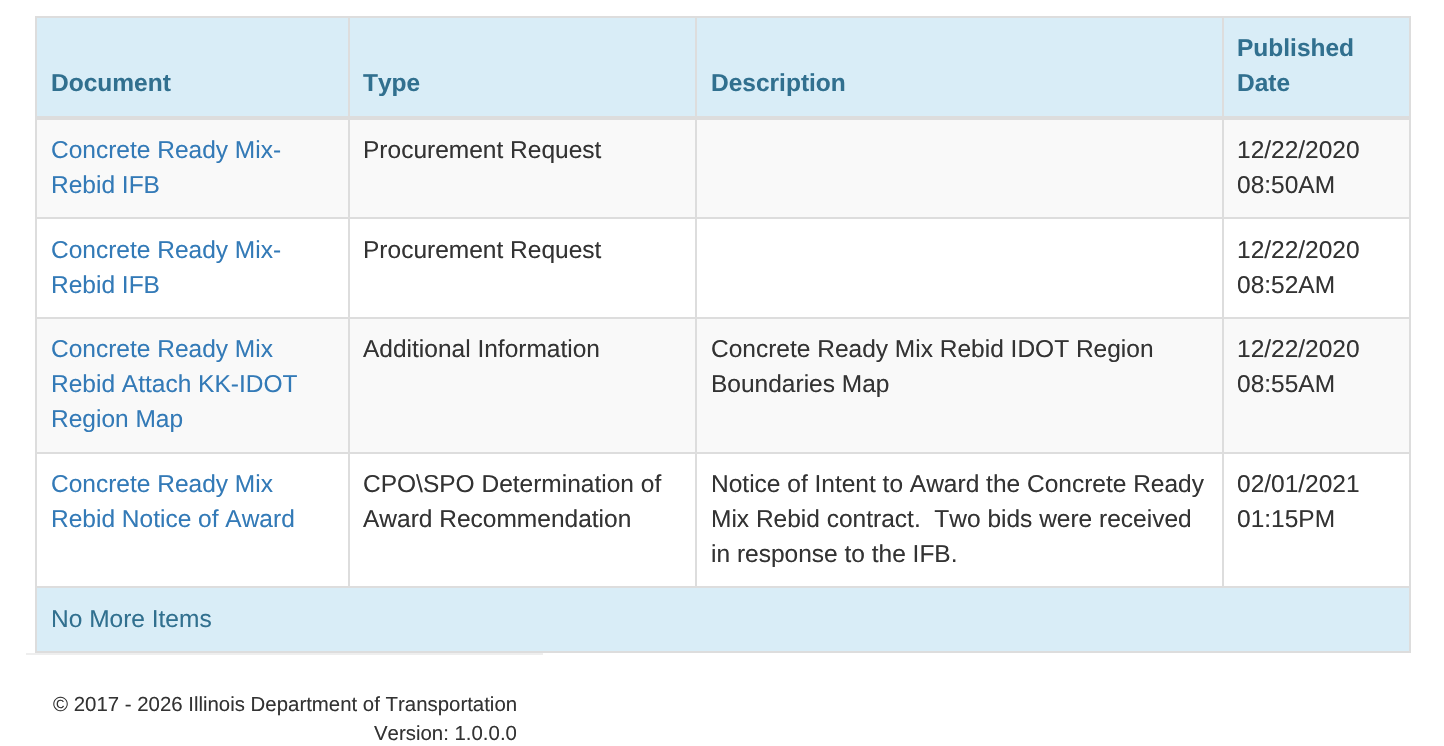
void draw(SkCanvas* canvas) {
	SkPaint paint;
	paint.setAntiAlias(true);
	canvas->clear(0xffffffff);
	paint.setColor(0xffdddddd);
	canvas->drawRect(SkRect::MakeXYWH(35, 16, 1376, 2), paint);
	canvas->drawRect(SkRect::MakeXYWH(1409, 16, 2, 637), paint);
	canvas->drawRect(SkRect::MakeXYWH(35, 651, 1376, 2), paint);
	canvas->drawRect(SkRect::MakeXYWH(35, 16, 2, 637), paint);
	paint.setColor(0xffd9edf7);
	canvas->drawRect(SkRect::MakeXYWH(37, 18, 1372, 98), paint);
	SkFont f1(fontMgr->matchFamilyStyle("Liberation Sans", SkFontStyle::Bold()), 24.5);
	f1.setSubpixel(true);
	paint.setColor(0xff31708f);
	canvas->drawString("Document", 51, 91, f1, paint);
	canvas->drawString("Type", 363, 91, f1, paint);
	canvas->drawString("Description", 711, 91, f1, paint);
	paint.setColor(0xfff9f9f9);
	canvas->drawRect(SkRect::MakeXYWH(37, 120, 1372, 97), paint);
	paint.setColor(0xffdddddd);
	canvas->drawRect(SkRect::MakeXYWH(1222, 217, 189, 2), paint);
	canvas->drawRect(SkRect::MakeXYWH(1222, 317, 189, 2), paint);
	paint.setColor(0xfff9f9f9);
	canvas->drawRect(SkRect::MakeXYWH(37, 319, 1372, 133), paint);
	paint.setColor(0xffdddddd);
	canvas->drawRect(SkRect::MakeXYWH(1222, 452, 189, 2), paint);
	canvas->drawRect(SkRect::MakeXYWH(35, 586, 1376, 2), paint);
	canvas->drawRect(SkRect::MakeXYWH(1222, 452, 2, 136), paint);
	canvas->drawRect(SkRect::MakeXYWH(695, 452, 528, 2), paint);
	canvas->drawRect(SkRect::MakeXYWH(1222, 317, 2, 136), paint);
	canvas->drawRect(SkRect::MakeXYWH(695, 317, 528, 2), paint);
	canvas->drawRect(SkRect::MakeXYWH(1222, 217, 2, 102), paint);
	canvas->drawRect(SkRect::MakeXYWH(695, 217, 528, 2), paint);
	canvas->drawRect(SkRect::MakeXYWH(695, 452, 2, 136), paint);
	canvas->drawRect(SkRect::MakeXYWH(348, 452, 349, 2), paint);
	canvas->drawRect(SkRect::MakeXYWH(695, 317, 2, 136), paint);
	canvas->drawRect(SkRect::MakeXYWH(348, 317, 349, 2), paint);
	canvas->drawRect(SkRect::MakeXYWH(695, 217, 2, 102), paint);
	canvas->drawRect(SkRect::MakeXYWH(348, 217, 349, 2), paint);
	canvas->drawRect(SkRect::MakeXYWH(348, 452, 2, 136), paint);
	canvas->drawRect(SkRect::MakeXYWH(35, 452, 315, 2), paint);
	canvas->drawRect(SkRect::MakeXYWH(348, 317, 2, 136), paint);
	canvas->drawRect(SkRect::MakeXYWH(35, 317, 315, 2), paint);
	canvas->drawRect(SkRect::MakeXYWH(348, 217, 2, 102), paint);
	canvas->drawRect(SkRect::MakeXYWH(35, 217, 315, 2), paint);
	canvas->drawRect(SkRect::MakeXYWH(348, 16, 2, 203), paint);
	canvas->drawRect(SkRect::MakeXYWH(695, 16, 2, 203), paint);
	canvas->drawRect(SkRect::MakeXYWH(1222, 16, 2, 203), paint);
	canvas->drawRect(SkRect::MakeXYWH(35, 116, 1376, 4), paint);
	paint.setColor(0xff31708f);
	canvas->drawString("Published", 1237, 56, f1, paint);
	canvas->drawString("Date", 1237, 91, f1, paint);
	SkFont f2(fontMgr->matchFamilyStyle("Liberation Sans", SkFontStyle::Normal()), 24.5);
	f2.setSubpixel(true);
	paint.setColor(0xff337ab7);
	canvas->drawString("Concrete Ready Mix-", 51, 158, f2, paint);
	canvas->drawString("Rebid IFB", 51, 193, f2, paint);
	paint.setColor(0xff333333);
	canvas->drawString("Procurement Request", 363, 158, f2, paint);
	canvas->drawString("12/22/2020", 1237, 158, f2, paint);
	canvas->drawString("08:50AM", 1237, 193, f2, paint);
	paint.setColor(0xff337ab7);
	canvas->drawString("Concrete Ready Mix-", 51, 258, f2, paint);
	canvas->drawString("Rebid IFB", 51, 293, f2, paint);
	paint.setColor(0xff333333);
	canvas->drawString("Procurement Request", 363, 258, f2, paint);
	canvas->drawString("12/22/2020", 1237, 258, f2, paint);
	canvas->drawString("08:52AM", 1237, 293, f2, paint);
	paint.setColor(0xff337ab7);
	canvas->drawString("Concrete Ready Mix", 51, 357, f2, paint);
	canvas->drawString("Rebid Attach KK-IDOT", 51, 392, f2, paint);
	canvas->drawString("Region Map", 51, 427, f2, paint);
	paint.setColor(0xff333333);
	canvas->drawString("Additional Information", 363, 357, f2, paint);
	canvas->drawString("Concrete Ready Mix Rebid IDOT Region", 711, 357, f2, paint);
	canvas->drawString("Boundaries Map", 711, 392, f2, paint);
	canvas->drawString("12/22/2020", 1237, 357, f2, paint);
	canvas->drawString("08:55AM", 1237, 392, f2, paint);
	paint.setColor(0xff337ab7);
	canvas->drawString("Concrete Ready Mix", 51, 492, f2, paint);
	canvas->drawString("Rebid Notice of Award", 51, 527, f2, paint);
	paint.setColor(0xff333333);
	canvas->drawString("CPO\\SPO Determination of", 363, 492, f2, paint);
	canvas->drawString("Award Recommendation", 363, 527, f2, paint);
	canvas->drawString("Notice of Intent to Award the Concrete Ready", 711, 492, f2, paint);
	canvas->drawString("Mix Rebid contract.  Two bids were received", 711, 527, f2, paint);
	canvas->drawString("in response to the IFB.", 711, 562, f2, paint);
	canvas->drawString("02/01/2021", 1237, 492, f2, paint);
	canvas->drawString("01:15PM", 1237, 527, f2, paint);
	paint.setColor(0xffd9edf7);
	canvas->drawRect(SkRect::MakeXYWH(37, 588, 1372, 63), paint);
	paint.setColor(0xff31708f);
	canvas->drawString("No More Items", 51, 627, f2, paint);
	paint.setColor(0xffeeeeee);
	canvas->drawRect(SkRect::MakeXYWH(26, 653, 517, 2), paint);
	SkFont f3(fontMgr->matchFamilyStyle("Liberation Sans", SkFontStyle::Normal()), 20.4);
	f3.setSubpixel(true);
	paint.setColor(0xff333333);
	canvas->drawString("© 2017 - 2026 Illinois Department of Transportation", 53, 711, f3, paint);
	canvas->drawString("Version: 1.0.0.0", 374, 740, f3, paint);
}
